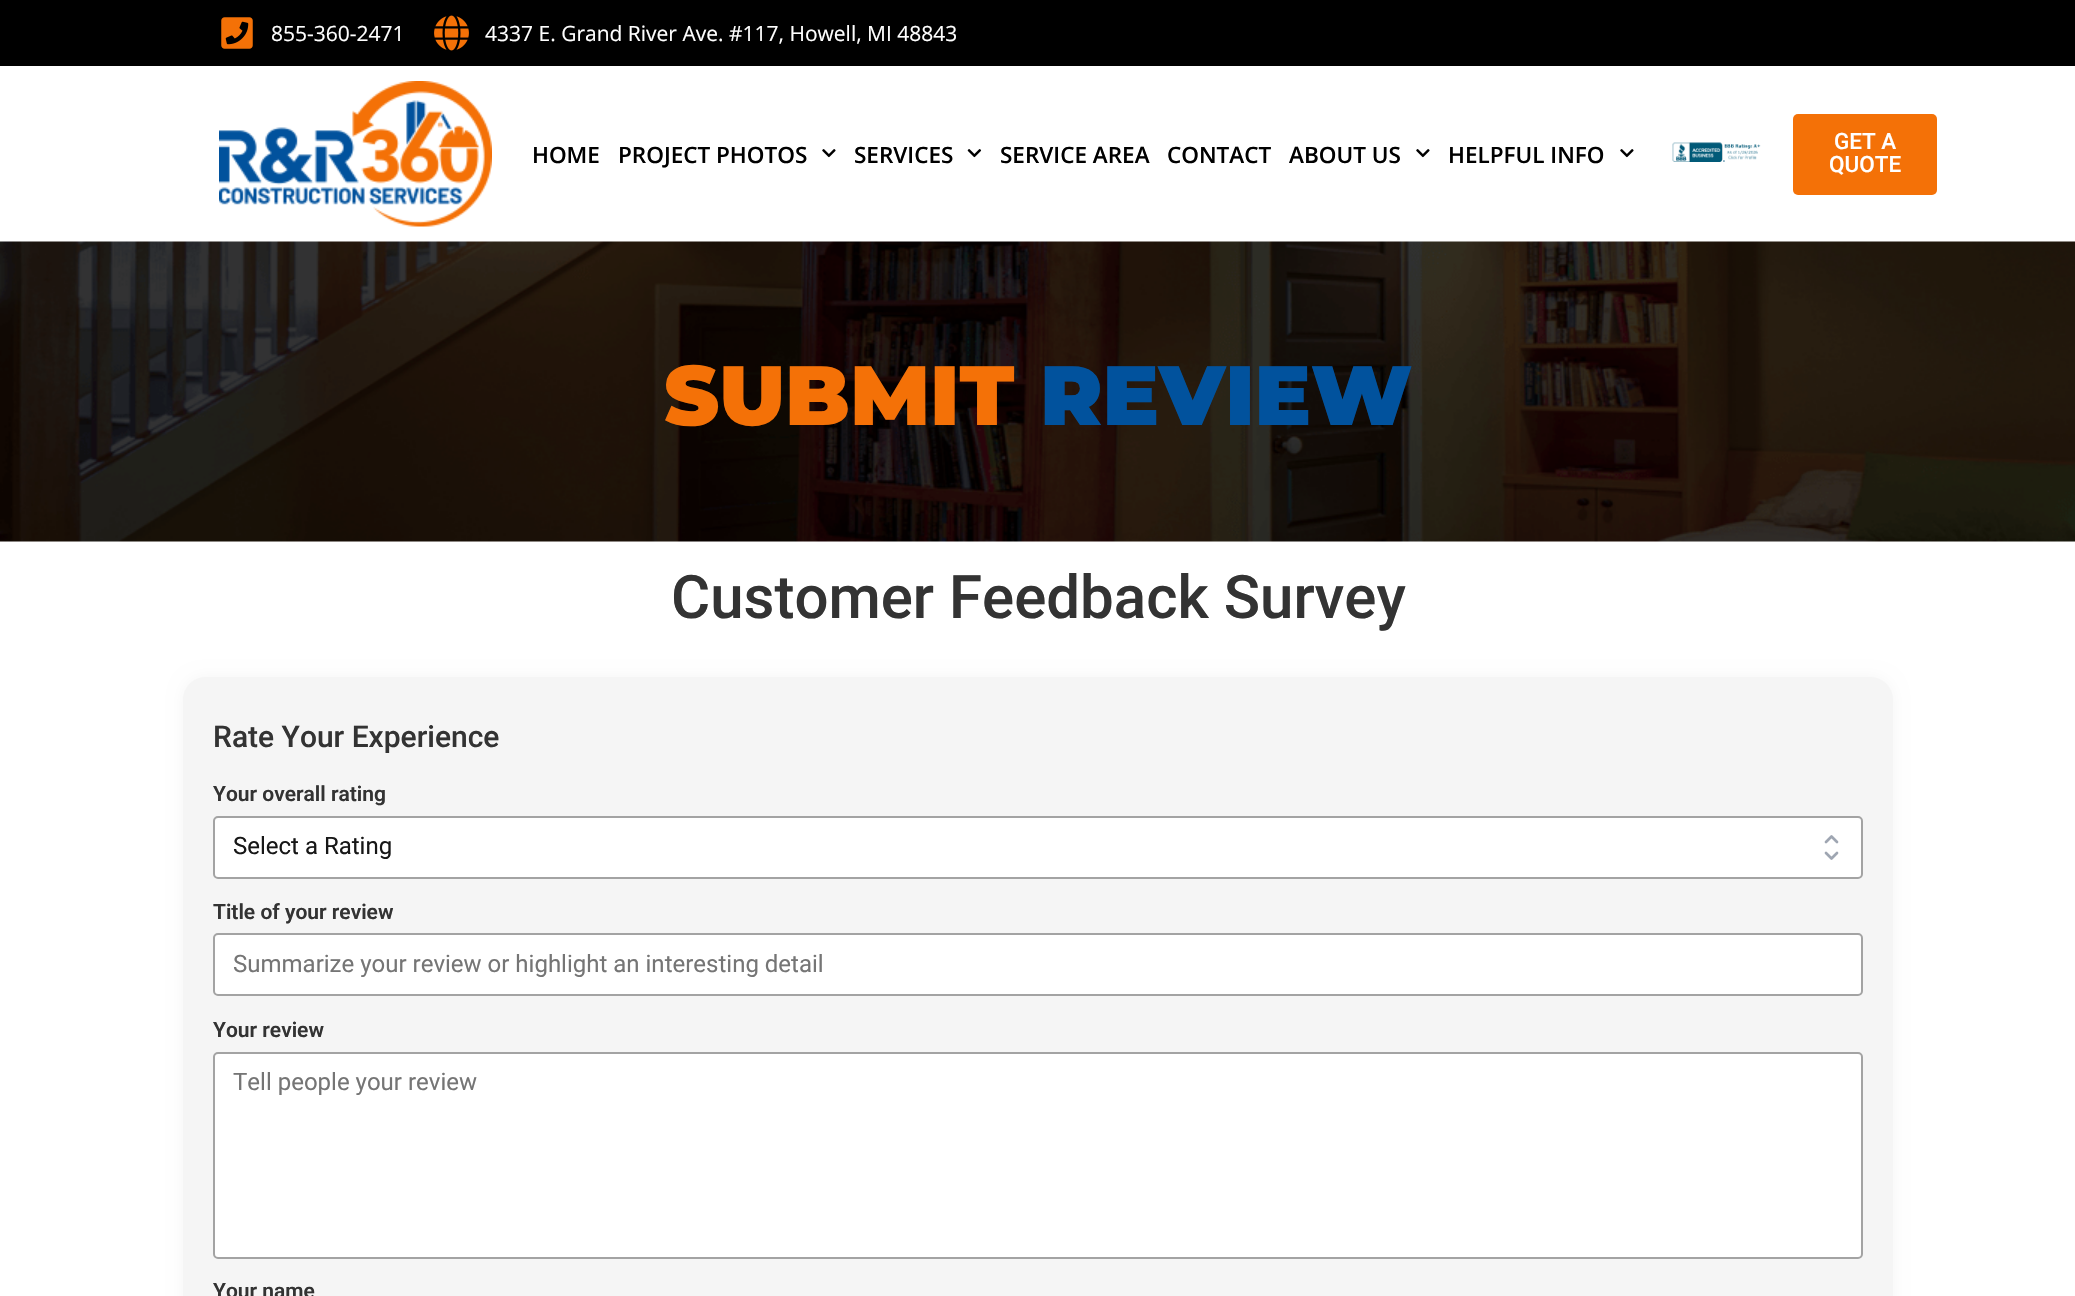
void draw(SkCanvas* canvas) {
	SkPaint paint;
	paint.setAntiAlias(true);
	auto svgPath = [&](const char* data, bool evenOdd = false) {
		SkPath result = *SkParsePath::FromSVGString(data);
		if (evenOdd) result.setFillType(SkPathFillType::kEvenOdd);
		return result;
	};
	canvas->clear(0xffffffff);
	paint.setColor(0xff000000);
	canvas->drawRect(SkRect::MakeXYWH(0, 0, 2075, 66), paint);
	canvas->drawImageRect(SkImages::DeferredFromEncodedData(SkData::MakeFromFileName("img1.png")), SkRect::MakeXYWH(221, 17, 32, 32), SkSamplingOptions());
	SkFont f1(fontMgr->matchFamilyStyle("Open Sans", SkFontStyle::Normal()), 21);
	f1.setSubpixel(true);
	paint.setColor(0xffffffff);
	canvas->drawString("855-360-2471", 271, 41, f1, paint);
	canvas->drawImageRect(SkImages::DeferredFromEncodedData(SkData::MakeFromFileName("img2.png")), SkRect::MakeXYWH(434, 15, 35, 36), SkSamplingOptions());
	canvas->drawString("4337 E. Grand River Ave. #117, Howell, MI 48843", 485, 41, f1, paint);
	paint.setColor(0x80000000);
	paint.setMaskFilter(SkMaskFilter::MakeBlur(kNormal_SkBlurStyle, 7.5));
	canvas->drawRect(SkRect::MakeXYWH(0, 66, 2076, 176), paint);
	paint.setMaskFilter(nullptr);
	paint.setColor(0xffffffff);
	canvas->drawRect(SkRect::MakeXYWH(0, 66, 2075, 176), paint);
	canvas->drawImageRect(SkImages::DeferredFromEncodedData(SkData::MakeFromFileName("img3.png")), SkRect::MakeXYWH(219, 81, 273, 146), SkSamplingOptions());
	SkFont f2(fontMgr->matchFamilyStyle("Open Sans", SkFontStyle(600, SkFontStyle::kNormal_Width, SkFontStyle::kUpright_Slant)), 22.5);
	f2.setSubpixel(true);
	paint.setColor(0xff000000);
	canvas->drawString("HOME", 532, 163, f2, paint);
	canvas->drawString("PROJECT PHOTOS", 618, 163, f2, paint);
	canvas->drawImageRect(SkImages::DeferredFromEncodedData(SkData::MakeFromFileName("img4.png")), SkRect::MakeXYWH(822, 149, 14, 9), SkSamplingOptions());
	canvas->drawString("SERVICES", 854, 163, f2, paint);
	canvas->drawImageRect(SkImages::DeferredFromEncodedData(SkData::MakeFromFileName("img5.png")), SkRect::MakeXYWH(967, 149, 15, 9), SkSamplingOptions());
	canvas->drawString("SERVICE AREA", 1000, 163, f2, paint);
	canvas->drawString("CONTACT", 1167, 163, f2, paint);
	canvas->drawString("ABOUT US", 1289, 163, f2, paint);
	canvas->drawImageRect(SkImages::DeferredFromEncodedData(SkData::MakeFromFileName("img4.png")), SkRect::MakeXYWH(1416, 149, 14, 9), SkSamplingOptions());
	canvas->drawString("HELPFUL INFO", 1448, 163, f2, paint);
	canvas->drawImageRect(SkImages::DeferredFromEncodedData(SkData::MakeFromFileName("img4.png")), SkRect::MakeXYWH(1620, 149, 14, 9), SkSamplingOptions());
	canvas->drawImageRect(SkImages::DeferredFromEncodedData(SkData::MakeFromFileName("img6.png")), SkRect::MakeXYWH(1672, 142, 89, 20), SkSamplingOptions());
	paint.setColor(0xfff47107);
	canvas->drawRoundRect(SkRect::MakeXYWH(1793, 114, 144, 81), 5, 5, paint);
	SkFont f3(fontMgr->matchFamilyStyle("Roboto", SkFontStyle(500, SkFontStyle::kNormal_Width, SkFontStyle::kUpright_Slant)), 22.5);
	f3.setSubpixel(true);
	paint.setColor(0xffffffff);
	canvas->drawString("GET A", 1834, 149, f3, paint);
	canvas->drawString("QUOTE", 1829, 172, f3, paint);
	canvas->drawImageRect(SkImages::DeferredFromEncodedData(SkData::MakeFromFileName("img7.png")), SkRect::MakeXYWH(0, 241, 2075, 301), SkSamplingOptions());
	SkFont f4(fontMgr->matchFamilyStyle("Montserrat", SkFontStyle(900, SkFontStyle::kNormal_Width, SkFontStyle::kUpright_Slant)), 84);
	f4.setSubpixel(true);
	paint.setColor(0xfff47107);
	canvas->drawString("SUBMIT", 664, 425, f4, paint);
	paint.setColor(0xff01529d);
	canvas->drawString("REVIEW", 1040, 425, f4, paint);
	SkFont f5(fontMgr->matchFamilyStyle("Roboto", SkFontStyle(500, SkFontStyle::kNormal_Width, SkFontStyle::kUpright_Slant)), 60);
	f5.setSubpixel(true);
	paint.setColor(0xff333333);
	canvas->drawString("Customer Feedback Survey", 671, 618, f5, paint);
	paint.setColor(0xfff5f5f5);
	paint.setMaskFilter(SkMaskFilter::MakeBlur(kNormal_SkBlurStyle, 7.5));
	canvas->drawRoundRect(SkRect::MakeXYWH(183, 677, 1710, 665), 23, 23, paint);
	paint.setMaskFilter(nullptr);
	canvas->drawRoundRect(SkRect::MakeXYWH(183, 677, 1710, 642), 23, 23, paint);
	SkFont f6(fontMgr->matchFamilyStyle("Roboto", SkFontStyle(500, SkFontStyle::kNormal_Width, SkFontStyle::kUpright_Slant)), 30);
	f6.setSubpixel(true);
	paint.setColor(0xff333333);
	canvas->drawString("Rate Your Experience", 213, 747, f6, paint);
	SkFont f7(fontMgr->matchFamilyStyle("Roboto", SkFontStyle(600, SkFontStyle::kNormal_Width, SkFontStyle::kUpright_Slant)), 21);
	f7.setSubpixel(true);
	canvas->drawString("Your overall rating", 213, 801, f7, paint);
	paint.setColor(0xffffffff);
	canvas->drawRoundRect(SkRect::MakeXYWH(215, 818, 1647, 60), 3, 3, paint);
	paint.setStroke(true);
	paint.setStrokeWidth(2.7);
	paint.setStrokeCap(SkPaint::kRound_Cap);
	paint.setStrokeJoin(SkPaint::kRound_Join);
	paint.setColor(0xff9fa6b2);
	canvas->drawPath(svgPath("M1826 842L1831.5 836.5L1837 842M1837 853L1831.5 858.5L1826 853"), paint);
	paint.setStrokeWidth(2);
	paint.setStrokeCap(SkPaint::kButt_Cap);
	paint.setStrokeJoin(SkPaint::kMiter_Join);
	paint.setColor(0xffa3a3a3);
	canvas->drawRoundRect(SkRect::MakeXYWH(214, 817, 1648, 61), 4, 4, paint);
	SkFont f8(fontMgr->matchFamilyStyle("Roboto", SkFontStyle::Normal()), 24);
	f8.setSubpixel(true);
	paint.setStroke(false);
	paint.setColor(0xff171717);
	canvas->drawString("Select a Rating", 233, 854, f8, paint);
	paint.setColor(0xff333333);
	canvas->drawString("Title of your review", 213, 919, f7, paint);
	paint.setColor(0xffffffff);
	canvas->drawRoundRect(SkRect::MakeXYWH(214, 934, 1648, 61), 4, 4, paint);
	paint.setStroke(true);
	paint.setColor(0xffa3a3a3);
	canvas->drawRoundRect(SkRect::MakeXYWH(214, 934, 1648, 61), 4, 4, paint);
	paint.setStroke(false);
	paint.setColor(0xff757575);
	canvas->drawString("Summarize your review or highlight an interesting detail", 233, 972, f8, paint);
	paint.setColor(0xff333333);
	canvas->drawString("Your review", 213, 1037, f7, paint);
	paint.setColor(0xffffffff);
	canvas->drawRoundRect(SkRect::MakeXYWH(214, 1053, 1648, 205), 4, 4, paint);
	paint.setStroke(true);
	paint.setColor(0xffa3a3a3);
	canvas->drawRoundRect(SkRect::MakeXYWH(214, 1053, 1648, 205), 4, 4, paint);
	paint.setStroke(false);
	paint.setColor(0xff757575);
	canvas->drawString("Tell people your review", 233, 1090, f8, paint);
	paint.setColor(0xff333333);
	canvas->drawString("Your name", 213, 1298, f7, paint);
}
